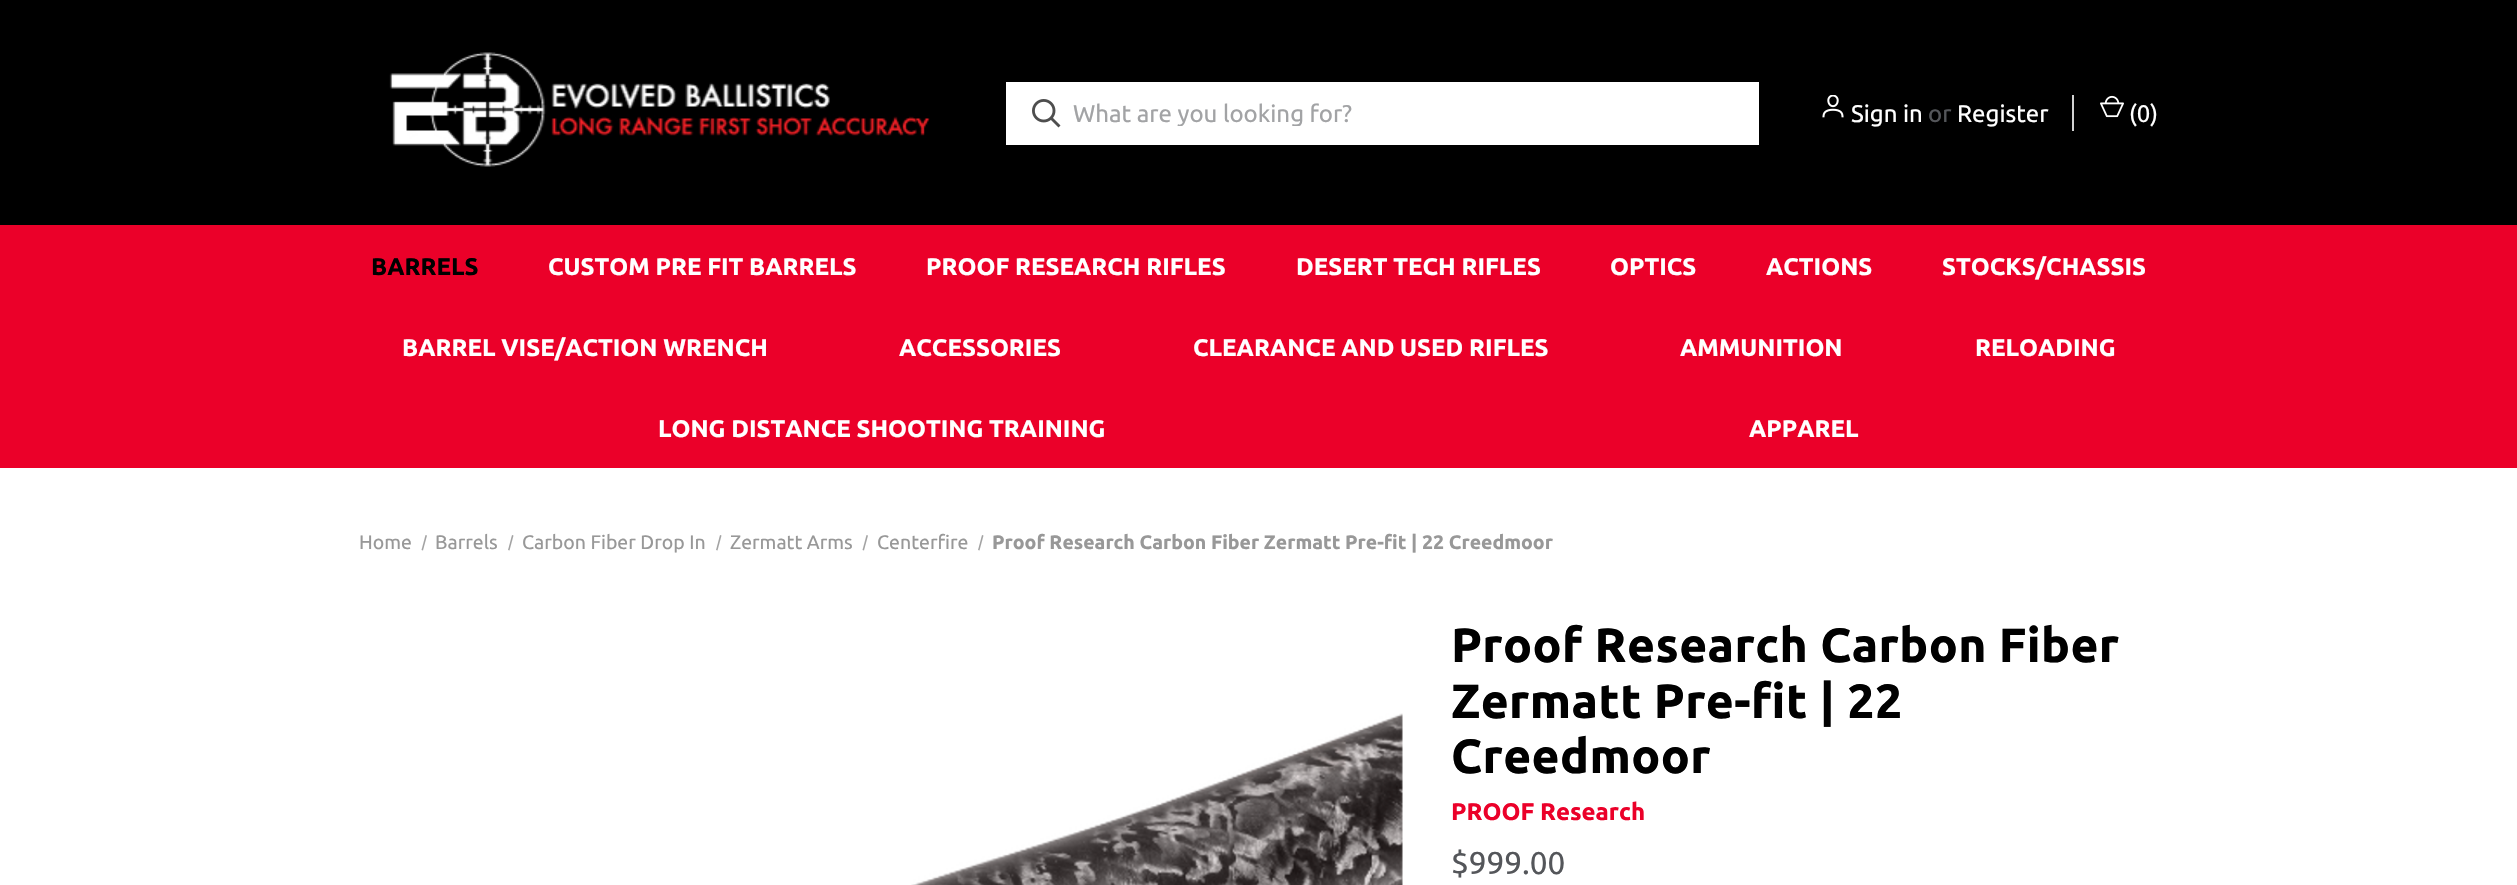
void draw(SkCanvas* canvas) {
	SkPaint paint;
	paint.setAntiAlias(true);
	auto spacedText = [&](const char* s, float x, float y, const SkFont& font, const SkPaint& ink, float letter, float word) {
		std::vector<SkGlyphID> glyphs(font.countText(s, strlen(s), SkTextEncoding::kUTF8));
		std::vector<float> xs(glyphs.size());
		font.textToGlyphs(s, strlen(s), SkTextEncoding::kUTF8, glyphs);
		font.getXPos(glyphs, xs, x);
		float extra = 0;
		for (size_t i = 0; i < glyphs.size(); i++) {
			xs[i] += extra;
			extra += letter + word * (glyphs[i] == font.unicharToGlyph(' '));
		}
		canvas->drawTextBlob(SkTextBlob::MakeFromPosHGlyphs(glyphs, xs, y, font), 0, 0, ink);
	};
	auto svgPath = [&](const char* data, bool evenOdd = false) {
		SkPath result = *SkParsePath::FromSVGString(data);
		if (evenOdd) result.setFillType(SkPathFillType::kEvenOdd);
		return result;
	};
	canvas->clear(0xffffffff);
	paint.setColor(0xff000000);
	canvas->drawRect(SkRect::MakeXYWH(0, 0, 2517, 225), paint);
	canvas->drawImageRect(SkImages::DeferredFromEncodedData(SkData::MakeFromFileName("img1.png")), SkRect::MakeXYWH(389, 52, 541, 115), SkSamplingOptions());
	paint.setColor(0xffffffff);
	canvas->drawRect(SkRect::MakeXYWH(1006, 82, 753, 63), paint);
	canvas->drawImageRect(SkImages::DeferredFromEncodedData(SkData::MakeFromFileName("img2.png")), SkRect::MakeXYWH(1032, 99, 29, 29), SkSamplingOptions());
	canvas->save();
	canvas->clipRect(SkRect::MakeXYWH(1073, 99, 663, 27));
	SkFont f1(fontMgr->matchFamilyStyle("Ubuntu", SkFontStyle::Normal()), 24);
	f1.setSubpixel(true);
	paint.setColor(0xffa2a3a5);
	canvas->drawString("What are you looking for?", 1073, 122, f1, paint);
	canvas->restore();
	canvas->drawImageRect(SkImages::DeferredFromEncodedData(SkData::MakeFromFileName("img3.png")), SkRect::MakeXYWH(1822, 95, 22, 23), SkSamplingOptions());
	paint.setColor(0xffffffff);
	canvas->drawString("Sign in", 1851, 122, f1, paint);
	paint.setColor(0xff54565a);
	canvas->drawString("or", 1928, 122, f1, paint);
	paint.setColor(0xffffffff);
	canvas->drawString("Register", 1957, 122, f1, paint);
	paint.setColor(0xffd2d2d2);
	canvas->drawRect(SkRect::MakeXYWH(2072, 95, 2, 36), paint);
	canvas->drawImageRect(SkImages::DeferredFromEncodedData(SkData::MakeFromFileName("img4.png")), SkRect::MakeXYWH(2100, 95, 24, 23), SkSamplingOptions());
	paint.setColor(0xffffffff);
	canvas->drawString("(0)", 2129, 122, f1, paint);
	paint.setColor(0xffeb0029);
	canvas->drawRect(SkRect::MakeXYWH(0, 225, 2517, 243), paint);
	SkFont f2(fontMgr->matchFamilyStyle("Ubuntu", SkFontStyle::Bold()), 24);
	f2.setSubpixel(true);
	paint.setColor(0xff000000);
	canvas->drawString("BARRELS", 371, 275, f2, paint);
	paint.setColor(0xffffffff);
	canvas->drawString("CUSTOM PRE FIT BARRELS", 548, 275, f2, paint);
	canvas->drawString("PROOF RESEARCH RIFLES", 926, 275, f2, paint);
	canvas->drawString("DESERT TECH RIFLES", 1296, 275, f2, paint);
	canvas->drawString("OPTICS", 1610, 275, f2, paint);
	canvas->drawString("ACTIONS", 1766, 275, f2, paint);
	canvas->drawString("STOCKS/CHASSIS", 1942, 275, f2, paint);
	canvas->drawString("BARREL VISE/ACTION WRENCH", 402, 356, f2, paint);
	canvas->drawString("ACCESSORIES", 899, 356, f2, paint);
	canvas->drawString("CLEARANCE AND USED RIFLES", 1193, 356, f2, paint);
	canvas->drawString("AMMUNITION", 1680, 356, f2, paint);
	canvas->drawString("RELOADING", 1975, 356, f2, paint);
	canvas->drawString("LONG DISTANCE SHOOTING TRAINING", 658, 437, f2, paint);
	canvas->drawString("APPAREL", 1749, 437, f2, paint);
	SkFont f3(fontMgr->matchFamilyStyle("Ubuntu", SkFontStyle::Normal()), 19.5);
	f3.setSubpixel(true);
	paint.setColor(0xff989898);
	canvas->drawString("Home", 359, 549, f3, paint);
	paint.setColor(0xffa3a3a3);
	canvas->drawPath(svgPath("M425.5 535L427 535.5L423 550.5L421.5 550Z"), paint);
	paint.setColor(0xff989898);
	canvas->drawString("Barrels", 435, 549, f3, paint);
	paint.setColor(0xffa3a3a3);
	canvas->drawPath(svgPath("M512 535L513.5 535.5L509.5 550.5L508 550Z"), paint);
	paint.setColor(0xff989898);
	canvas->drawString("Carbon Fiber Drop In", 522, 549, f3, paint);
	paint.setColor(0xffa3a3a3);
	canvas->drawPath(svgPath("M720 535L721.5 535.5L717.5 550.5L716 550Z"), paint);
	paint.setColor(0xff989898);
	canvas->drawString("Zermatt Arms", 730, 549, f3, paint);
	paint.setColor(0xffa3a3a3);
	canvas->drawPath(svgPath("M866.5 535L868 535.5L864 550.5L862.5 550Z"), paint);
	paint.setColor(0xff989898);
	canvas->drawString("Centerfire", 877, 549, f3, paint);
	paint.setColor(0xffa3a3a3);
	canvas->drawPath(svgPath("M982 535L983.5 535.5L979.5 550.5L978 550Z"), paint);
	SkFont f4(fontMgr->matchFamilyStyle("Ubuntu", SkFontStyle::Bold()), 19.5);
	f4.setSubpixel(true);
	paint.setColor(0xff989898);
	canvas->drawString("Proof Research Carbon Fiber Zermatt Pre-fit | 22 Creedmoor", 992, 549, f4, paint);
	canvas->drawImageRect(SkImages::DeferredFromEncodedData(SkData::MakeFromFileName("img5.png")), SkRect::MakeXYWH(911, 713, 492, 172), SkSamplingOptions());
	SkFont f5(fontMgr->matchFamilyStyle("Ubuntu", SkFontStyle::Bold()), 48);
	f5.setSubpixel(true);
	paint.setColor(0xff000000);
	spacedText("Proof Research Carbon Fiber", 1451, 662, f5, paint, 0.4, 0);
	spacedText("Zermatt Pre-fit | 22", 1451, 718, f5, paint, 0.4, 0);
	spacedText("Creedmoor", 1451, 773, f5, paint, 0.4, 0);
	paint.setColor(0xffeb0029);
	canvas->drawString("PROOF Research", 1451, 820, f2, paint);
	SkFont f6(fontMgr->matchFamilyStyle("Ubuntu", SkFontStyle::Normal()), 31.5);
	f6.setSubpixel(true);
	paint.setColor(0xff54565a);
	canvas->drawString("$999.00", 1451, 874, f6, paint);
}
